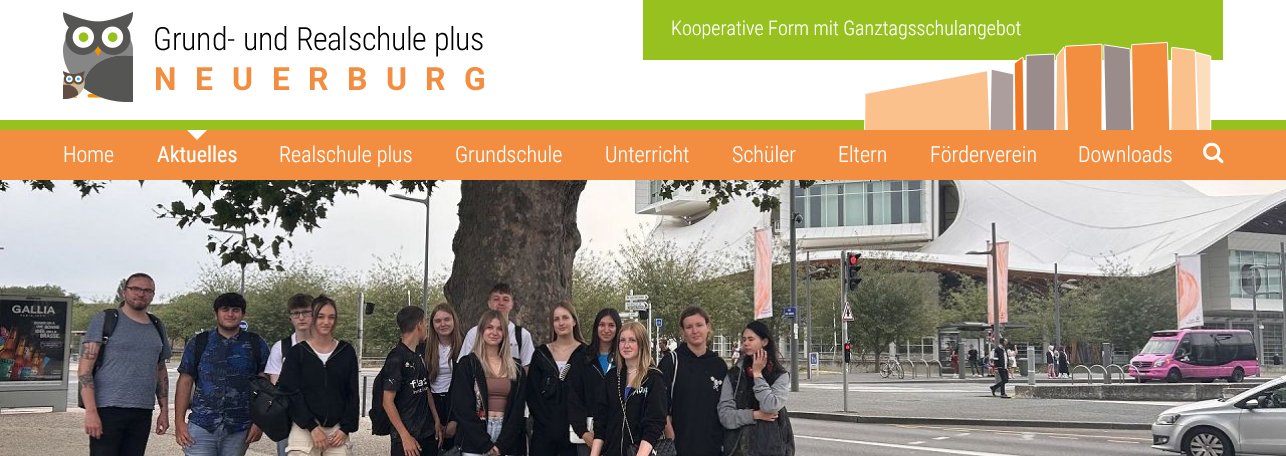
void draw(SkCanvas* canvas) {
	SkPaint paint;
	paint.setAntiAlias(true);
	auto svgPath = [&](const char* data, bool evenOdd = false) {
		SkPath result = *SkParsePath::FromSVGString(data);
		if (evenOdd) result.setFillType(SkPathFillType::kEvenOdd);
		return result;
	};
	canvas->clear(0xffffffff);
	canvas->drawImageRect(SkImages::DeferredFromEncodedData(SkData::MakeFromFileName("img1.png")), SkRect::MakeXYWH(63, 12, 421, 90), SkSamplingOptions());
	paint.setColor(0xff96c11f);
	canvas->drawRect(SkRect::MakeXYWH(643, 0, 580, 60), paint);
	SkFont f1(fontMgr->matchFamilyStyle("Roboto Condensed", SkFontStyle(300, SkFontStyle::kNormal_Width, SkFontStyle::kUpright_Slant)), 20);
	f1.setSubpixel(true);
	paint.setColor(0xffffffff);
	canvas->drawString("Kooperative Form mit Ganztagsschulangebot", 671, 35, f1, paint);
	paint.setColor(0xff96c11f);
	canvas->drawRect(SkRect::MakeXYWH(0, 120, 1286, 10), paint);
	canvas->drawImageRect(SkImages::DeferredFromEncodedData(SkData::MakeFromFileName("img2.png")), SkRect::MakeXYWH(864, 41, 348, 89), SkSamplingOptions());
	paint.setColor(0xfff38d3f);
	canvas->drawRect(SkRect::MakeXYWH(0, 130, 1286, 50), paint);
	SkFont f2(fontMgr->matchFamilyStyle("Roboto Condensed", SkFontStyle(300, SkFontStyle::kNormal_Width, SkFontStyle::kUpright_Slant)), 22);
	f2.setSubpixel(true);
	paint.setColor(0xffffffff);
	canvas->drawString("Home", 63, 162, f2, paint);
	canvas->drawPath(svgPath("M187 130H207L197 140Z"), paint);
	SkFont f3(fontMgr->matchFamilyStyle("Roboto Condensed", SkFontStyle::Normal()), 22);
	f3.setSubpixel(true);
	canvas->drawString("Aktuelles", 157, 162, f3, paint);
	canvas->drawString("Realschule plus", 279, 162, f2, paint);
	canvas->drawString("Grundschule", 455, 162, f2, paint);
	canvas->drawString("Unterricht", 605, 162, f2, paint);
	canvas->drawString("Schüler", 732, 162, f2, paint);
	canvas->drawString("Eltern", 838, 162, f2, paint);
	canvas->drawString("Förderverein", 930, 162, f2, paint);
	canvas->drawString("Downloads", 1078, 162, f2, paint);
	canvas->drawImageRect(SkImages::DeferredFromEncodedData(SkData::MakeFromFileName("img3.png")), SkRect::MakeXYWH(1203, 142, 21, 22), SkSamplingOptions());
	canvas->drawImageRect(SkImages::DeferredFromEncodedData(SkData::MakeFromFileName("img4.png")), SkRect::MakeXYWH(0, 180, 1286, 276), SkSamplingOptions());
}
